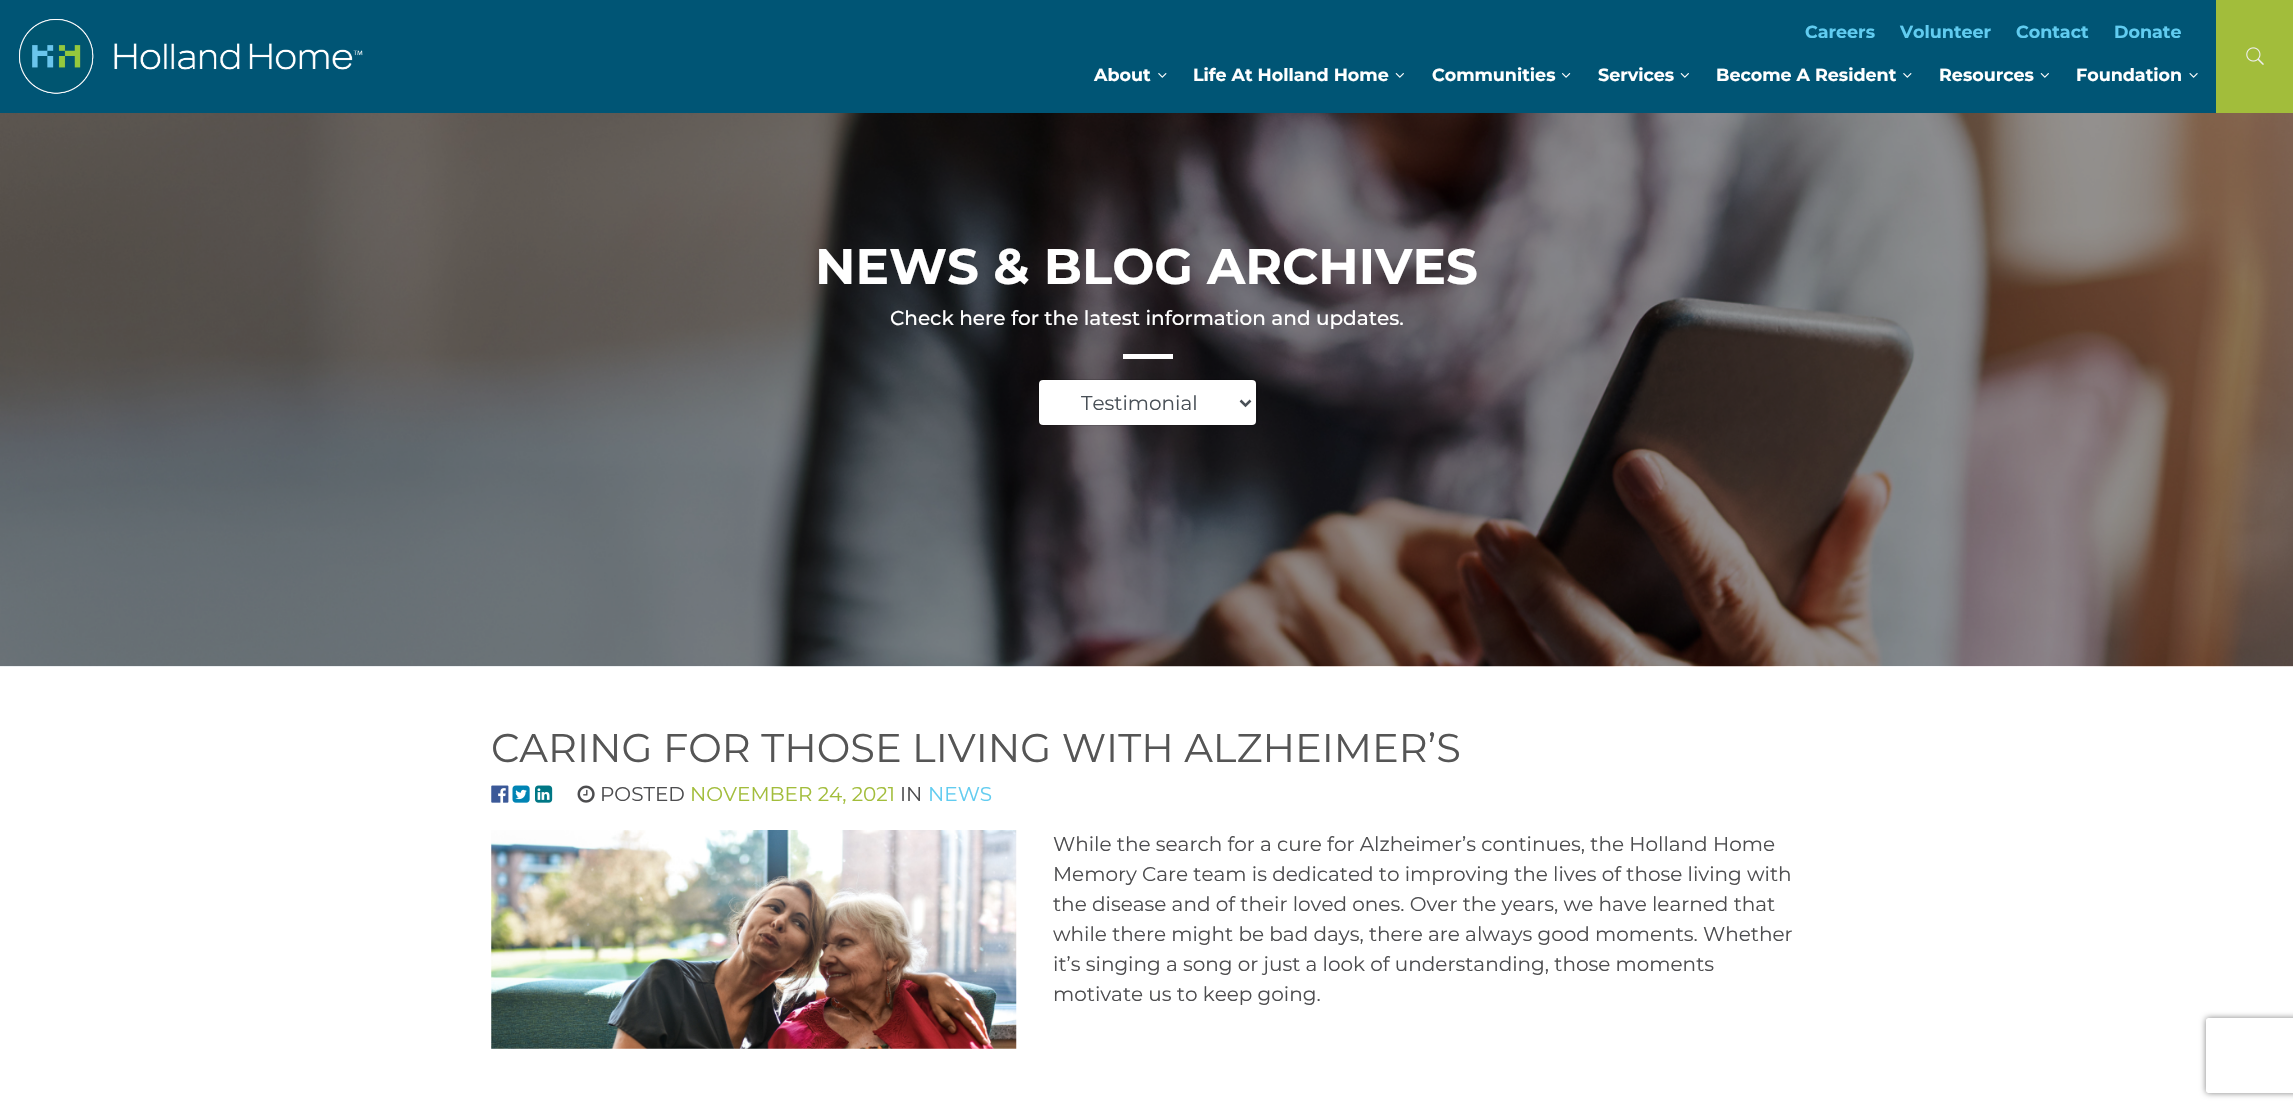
void draw(SkCanvas* canvas) {
	SkPaint paint;
	paint.setAntiAlias(true);
	auto svgPath = [&](const char* data, bool evenOdd = false) {
		SkPath result = *SkParsePath::FromSVGString(data);
		if (evenOdd) result.setFillType(SkPathFillType::kEvenOdd);
		return result;
	};
	canvas->clear(0xffffffff);
	paint.setColor(0xff005575);
	canvas->drawRect(SkRect::MakeXYWH(0, 0, 2216, 38), paint);
	SkFont f1(fontMgr->matchFamilyStyle("Montserrat", SkFontStyle::Bold()), 17.5);
	f1.setSubpixel(true);
	paint.setColor(0xff61ccf0);
	canvas->drawString("Careers", 1805, 38, f1, paint);
	canvas->drawString("Volunteer", 1900, 38, f1, paint);
	canvas->drawString("Contact", 2016, 38, f1, paint);
	canvas->drawString("Donate", 2114, 38, f1, paint);
	paint.setColor(0xffa2bd3b);
	canvas->drawRect(SkRect::MakeXYWH(2216, 0, 77, 113), paint);
	canvas->drawImageRect(SkImages::DeferredFromEncodedData(SkData::MakeFromFileName("img1.png")), SkRect::MakeXYWH(2246, 47, 18, 18), SkSamplingOptions());
	paint.setColor(0xff005575);
	canvas->drawRect(SkRect::MakeXYWH(0, 38, 2216, 75), paint);
	canvas->drawImageRect(SkImages::DeferredFromEncodedData(SkData::MakeFromFileName("img2.png")), SkRect::MakeXYWH(19, 19, 344, 75), SkSamplingOptions());
	paint.setColor(0xffffffff);
	canvas->drawString("About", 1094, 81, f1, paint);
	canvas->drawImageRect(SkImages::DeferredFromEncodedData(SkData::MakeFromFileName("img3.png")), SkRect::MakeXYWH(1158, 73, 9, 5), SkSamplingOptions());
	canvas->drawString("Life At Holland Home", 1193, 81, f1, paint);
	canvas->drawImageRect(SkImages::DeferredFromEncodedData(SkData::MakeFromFileName("img4.png")), SkRect::MakeXYWH(1395, 73, 9, 5), SkSamplingOptions());
	canvas->drawString("Communities", 1432, 81, f1, paint);
	canvas->drawImageRect(SkImages::DeferredFromEncodedData(SkData::MakeFromFileName("img5.png")), SkRect::MakeXYWH(1561, 73, 10, 5), SkSamplingOptions());
	canvas->drawString("Services", 1598, 81, f1, paint);
	canvas->drawImageRect(SkImages::DeferredFromEncodedData(SkData::MakeFromFileName("img4.png")), SkRect::MakeXYWH(1680, 73, 9, 5), SkSamplingOptions());
	canvas->drawString("Become A Resident", 1716, 81, f1, paint);
	canvas->drawImageRect(SkImages::DeferredFromEncodedData(SkData::MakeFromFileName("img3.png")), SkRect::MakeXYWH(1903, 73, 9, 5), SkSamplingOptions());
	canvas->drawString("Resources", 1939, 81, f1, paint);
	canvas->drawImageRect(SkImages::DeferredFromEncodedData(SkData::MakeFromFileName("img4.png")), SkRect::MakeXYWH(2040, 73, 9, 5), SkSamplingOptions());
	canvas->drawString("Foundation", 2076, 81, f1, paint);
	canvas->drawImageRect(SkImages::DeferredFromEncodedData(SkData::MakeFromFileName("img6.png")), SkRect::MakeXYWH(2189, 73, 9, 5), SkSamplingOptions());
	canvas->drawImageRect(SkImages::DeferredFromEncodedData(SkData::MakeFromFileName("img7.png")), SkRect::MakeXYWH(0, 113, 2293, 554), SkSamplingOptions());
	SkFont f2(fontMgr->matchFamilyStyle("Montserrat", SkFontStyle::Bold()), 50);
	f2.setSubpixel(true);
	canvas->drawString("NEWS & BLOG ARCHIVES", 815, 284, f2, paint);
	SkFont f3(fontMgr->matchFamilyStyle("Montserrat", SkFontStyle(500, SkFontStyle::kNormal_Width, SkFontStyle::kUpright_Slant)), 20);
	f3.setSubpixel(true);
	canvas->drawString("Check here for the latest information and updates.", 890, 325, f3, paint);
	canvas->drawRect(SkRect::MakeXYWH(1123, 354, 50, 5), paint);
	canvas->drawRoundRect(SkRect::MakeXYWH(1039, 380, 217, 45), 4, 4, paint);
	paint.setStroke(true);
	paint.setStrokeWidth(1);
	paint.setColor(0x26000000);
	canvas->drawRoundRect(SkRect::MakeXYWH(1038.5, 379.5, 219, 46), 4.5, 4.5, paint);
	paint.setStrokeWidth(2.5);
	paint.setColor(0xff495057);
	canvas->drawPath(svgPath("M1240.5 400.5L1245.5 405.5L1250.5 400.5"), paint);
	SkFont f4(fontMgr->matchFamilyStyle("Montserrat", SkFontStyle::Normal()), 20);
	f4.setSubpixel(true);
	paint.setStroke(false);
	canvas->drawString("Testimonial", 1081, 410, f4, paint);
	SkFont f5(fontMgr->matchFamilyStyle("Montserrat", SkFontStyle::Normal()), 40);
	f5.setSubpixel(true);
	paint.setColor(0xff555555);
	canvas->drawString("CARING FOR THOSE LIVING WITH ALZHEIMER’S", 491, 762, f5, paint);
	canvas->drawImageRect(SkImages::DeferredFromEncodedData(SkData::MakeFromFileName("img8.png")), SkRect::MakeXYWH(491, 785, 18, 18), SkSamplingOptions());
	canvas->drawImageRect(SkImages::DeferredFromEncodedData(SkData::MakeFromFileName("img9.png")), SkRect::MakeXYWH(512, 785, 18, 18), SkSamplingOptions());
	canvas->drawImageRect(SkImages::DeferredFromEncodedData(SkData::MakeFromFileName("img10.png")), SkRect::MakeXYWH(535, 785, 18, 18), SkSamplingOptions());
	canvas->drawImageRect(SkImages::DeferredFromEncodedData(SkData::MakeFromFileName("img11.png")), SkRect::MakeXYWH(577, 785, 18, 18), SkSamplingOptions());
	paint.setColor(0xff4d4d4f);
	canvas->drawString("POSTED", 600, 801, f4, paint);
	paint.setColor(0xffa2bd3b);
	canvas->drawString("NOVEMBER 24, 2021", 690, 801, f4, paint);
	paint.setColor(0xff4d4d4f);
	canvas->drawString("IN", 900, 801, f4, paint);
	paint.setColor(0xff61ccf0);
	canvas->drawString("NEWS", 928, 801, f4, paint);
	canvas->drawImageRect(SkImages::DeferredFromEncodedData(SkData::MakeFromFileName("img12.png")), SkRect::MakeXYWH(491, 830, 526, 219), SkSamplingOptions());
	paint.setColor(0xff4d4d4f);
	canvas->drawString("While the search for a cure for Alzheimer’s continues, the Holland Home", 1053, 851, f4, paint);
	canvas->drawString("Memory Care team is dedicated to improving the lives of those living with", 1053, 881, f4, paint);
	canvas->drawString("the disease and of their loved ones. Over the years, we have learned that", 1053, 911, f4, paint);
	canvas->drawString("while there might be bad days, there are always good moments. Whether", 1053, 941, f4, paint);
	canvas->drawString("it’s singing a song or just a look of understanding, those moments", 1053, 971, f4, paint);
	canvas->drawString("motivate us to keep going.", 1053, 1001, f4, paint);
	canvas->save();
	canvas->clipPath(svgPath("M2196 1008H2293V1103H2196ZM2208.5 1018H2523.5C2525 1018 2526 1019 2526 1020.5V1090.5C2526 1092 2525 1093 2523.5 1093H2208.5C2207 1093 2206 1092 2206 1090.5V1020.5C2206 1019 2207 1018 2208.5 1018Z", true), true);
	paint.setColor(0xff808080);
	paint.setMaskFilter(SkMaskFilter::MakeBlur(kNormal_SkBlurStyle, 3));
	canvas->drawRoundRect(SkRect::MakeXYWH(2206, 1018, 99, 75), 2.5, 2.5, paint);
	paint.setMaskFilter(nullptr);
	canvas->restore();
}
